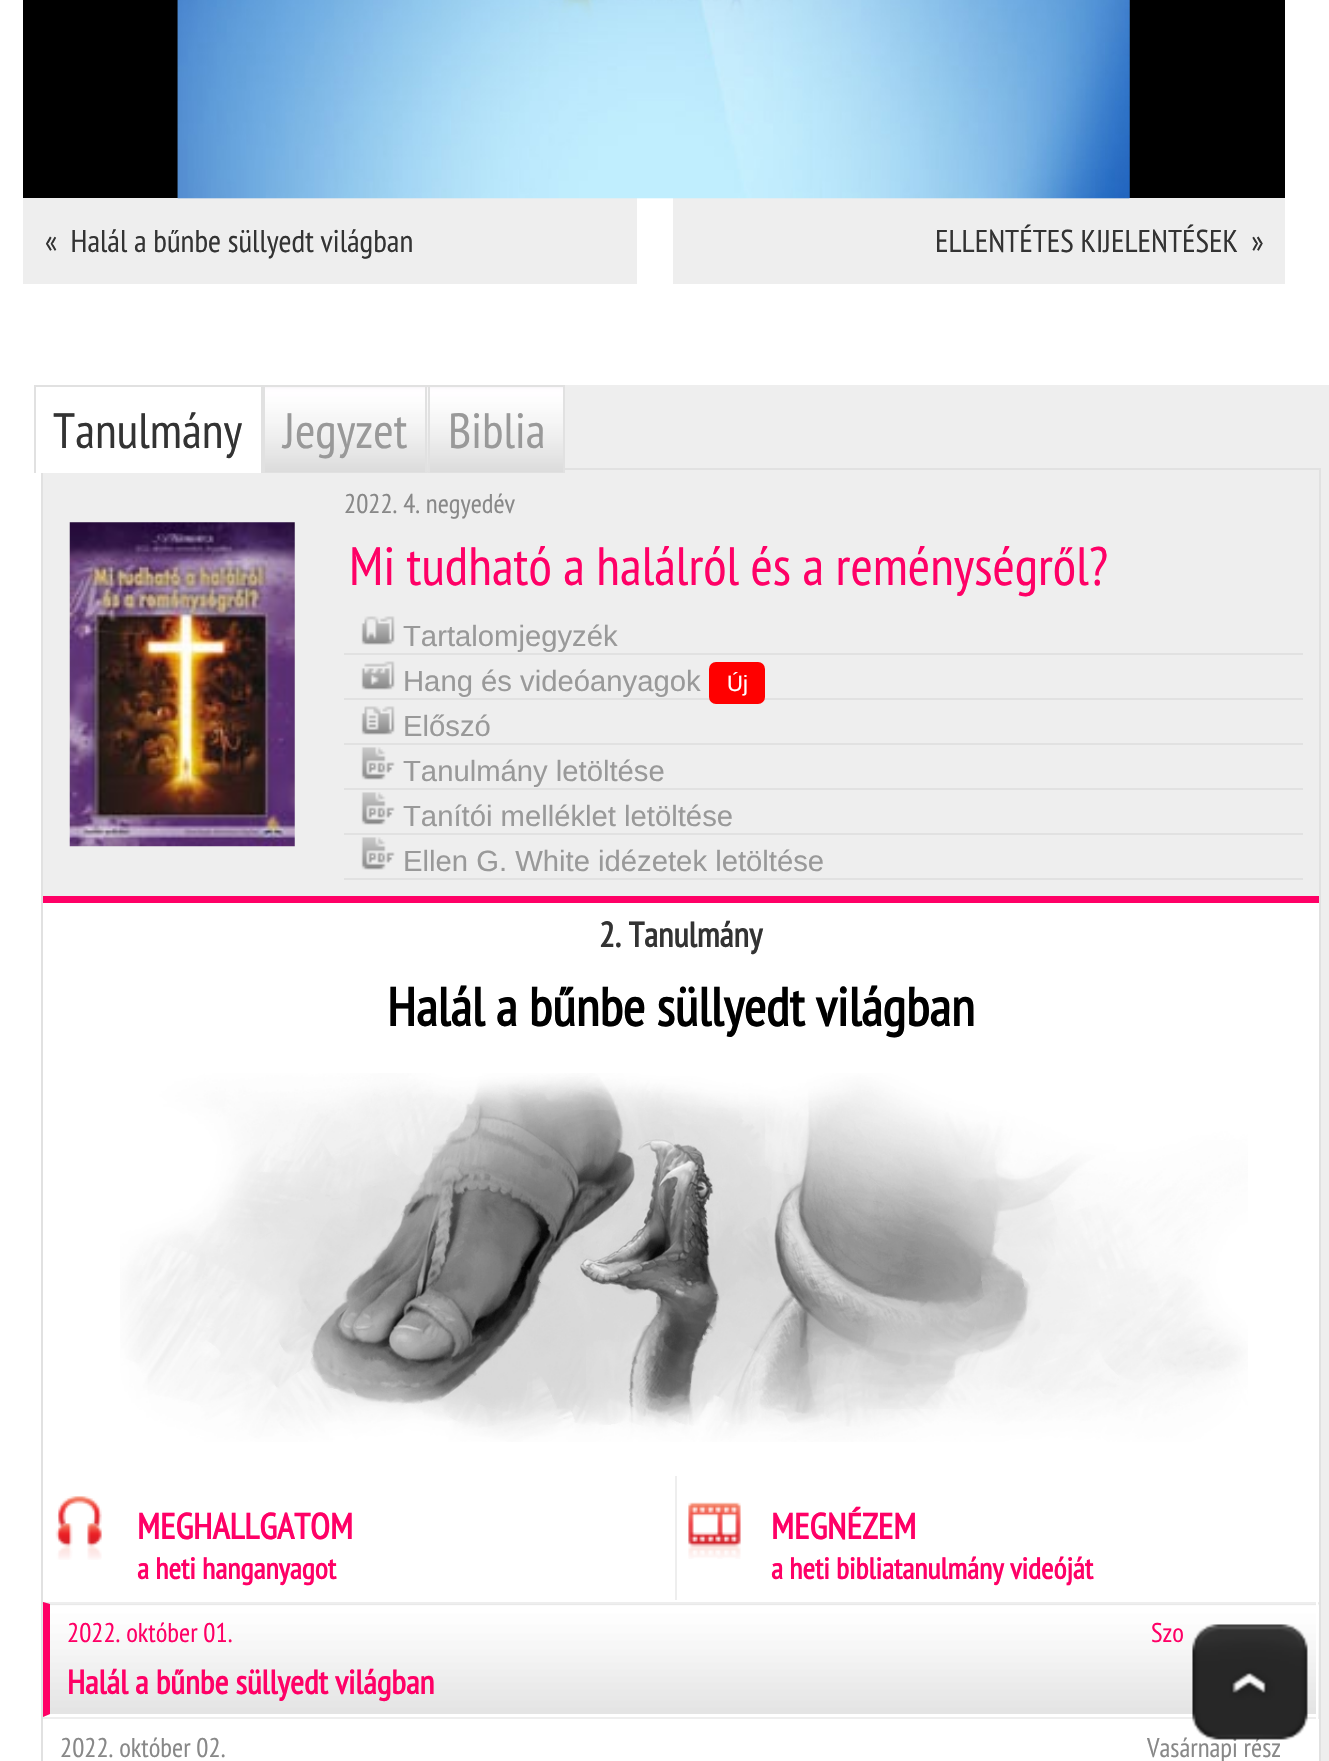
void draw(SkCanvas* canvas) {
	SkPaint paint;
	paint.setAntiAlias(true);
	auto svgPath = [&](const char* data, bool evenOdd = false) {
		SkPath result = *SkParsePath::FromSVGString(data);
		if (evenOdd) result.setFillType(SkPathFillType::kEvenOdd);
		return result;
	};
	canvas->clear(0xffffffff);
	paint.setColor(0xff000000);
	canvas->drawRect(SkRect::MakeXYWH(23, 0, 1262, 198), paint);
	paint.setColor(0xffeeeeee);
	canvas->drawRect(SkRect::MakeXYWH(23, 198, 614, 86), paint);
	canvas->drawRect(SkRect::MakeXYWH(673, 198, 612, 86), paint);
	canvas->drawImageRect(SkImages::DeferredFromEncodedData(SkData::MakeFromFileName("img1.png")), SkRect::MakeXYWH(177, 0, 953, 199), SkSamplingOptions());
	canvas->drawImageRect(SkImages::DeferredFromEncodedData(SkData::MakeFromFileName("img2.png")), SkRect::MakeXYWH(177, 0, 953, 199), SkSamplingOptions());
	SkFont f1(fontMgr->matchFamilyStyle("PT Sans Narrow", SkFontStyle::Normal()), 31.5);
	f1.setSubpixel(true);
	paint.setColor(0xff333333);
	canvas->drawString("«  Halál a bűnbe süllyedt világban", 45, 252, f1, paint);
	canvas->drawString("ELLENTÉTES KIJELENTÉSEK  »", 935, 252, f1, paint);
	paint.setColor(0xffeeeeee);
	canvas->drawRect(SkRect::MakeXYWH(430, 385, 899, 1376), paint);
	paint.setColor(0xffffffff);
	canvas->drawRect(SkRect::MakeXYWH(430, 903, 889, 858), paint);
	paint.setStroke(true);
	paint.setStrokeWidth(2);
	paint.setColor(0xffe1e1e1);
	canvas->drawRect(SkRect::MakeXYWH(42, 469, 1278, 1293), paint);
	paint.setStroke(false);
	paint.setColor(0xffeeeeee);
	canvas->drawRect(SkRect::MakeXYWH(43, 470, 387, 426), paint);
	paint.setColor(0xffffffff);
	canvas->drawRect(SkRect::MakeXYWH(41, 468, 220, 5), paint);
	paint.setColor(0xffe1e1e1);
	canvas->drawRect(SkRect::MakeXYWH(34, 385, 531, 2), paint);
	canvas->drawRect(SkRect::MakeXYWH(261, 385, 4, 88), paint);
	canvas->drawRect(SkRect::MakeXYWH(34, 385, 2, 88), paint);
	SkFont f2(fontMgr->matchFamilyStyle("PT Sans Narrow", SkFontStyle::Normal()), 49.5);
	f2.setSubpixel(true);
	paint.setColor(0xff333333);
	canvas->drawString("Tanulmány", 53, 448, f2, paint);
	paint.setColor(0xffefefef);
	canvas->drawRect(SkRect::MakeXYWH(265, 387, 163, 83), paint);
	canvas->drawImageRect(SkImages::DeferredFromEncodedData(SkData::MakeFromFileName("img3.png")), SkRect::MakeXYWH(265, 387, 163, 86), SkSamplingOptions());
	paint.setColor(0xffe1e1e1);
	canvas->drawRect(SkRect::MakeXYWH(425, 385, 2, 88), paint);
	paint.setColor(0xff999999);
	canvas->drawString("Jegyzet", 283, 448, f2, paint);
	canvas->drawImageRect(SkImages::DeferredFromEncodedData(SkData::MakeFromFileName("img4.png")), SkRect::MakeXYWH(427, 387, 136, 86), SkSamplingOptions());
	paint.setColor(0xffe1e1e1);
	canvas->drawRect(SkRect::MakeXYWH(563, 385, 2, 88), paint);
	canvas->drawRect(SkRect::MakeXYWH(428, 385, 2, 88), paint);
	paint.setColor(0xff999999);
	canvas->drawString("Biblia", 448, 448, f2, paint);
	canvas->drawImageRect(SkImages::DeferredFromEncodedData(SkData::MakeFromFileName("img5.png")), SkRect::MakeXYWH(69, 522, 226, 325), SkSamplingOptions());
	SkFont f3(fontMgr->matchFamilyStyle("PT Sans Narrow", SkFontStyle::Normal()), 27);
	f3.setSubpixel(true);
	paint.setColor(0xff888888);
	canvas->drawString("2022. 4. negyedév", 344, 513, f3, paint);
	SkFont f4(fontMgr->matchFamilyStyle("PT Sans Narrow", SkFontStyle::Normal()), 54);
	f4.setSubpixel(true);
	paint.setColor(0xffff0066);
	canvas->drawString("Mi tudható a halálról és a reménységről?", 349, 585, f4, paint);
	paint.setColor(0xffe1e1e1);
	canvas->drawRect(SkRect::MakeXYWH(344, 653, 959, 2), paint);
	canvas->drawImageRect(SkImages::DeferredFromEncodedData(SkData::MakeFromFileName("img6.png")), SkRect::MakeXYWH(361, 616, 34, 29), SkSamplingOptions());
	SkFont f5(fontMgr->matchFamilyStyle("Liberation Sans", SkFontStyle::Normal()), 29.25);
	f5.setSubpixel(true);
	paint.setColor(0xff999999);
	canvas->drawString("Tartalomjegyzék", 403, 646, f5, paint);
	paint.setColor(0xffe1e1e1);
	canvas->drawRect(SkRect::MakeXYWH(344, 698, 959, 2), paint);
	canvas->drawImageRect(SkImages::DeferredFromEncodedData(SkData::MakeFromFileName("img7.png")), SkRect::MakeXYWH(361, 661, 34, 29), SkSamplingOptions());
	paint.setColor(0xff999999);
	canvas->drawString("Hang és videóanyagok", 403, 691, f5, paint);
	paint.setColor(0xffff0000);
	canvas->drawRoundRect(SkRect::MakeXYWH(709, 662, 56, 42), 7, 7, paint);
	SkFont f6(fontMgr->matchFamilyStyle("Liberation Sans", SkFontStyle::Normal()), 22);
	f6.setSubpixel(true);
	paint.setColor(0xffffffff);
	canvas->drawString("Új", 727, 691, f6, paint);
	paint.setColor(0xffe1e1e1);
	canvas->drawRect(SkRect::MakeXYWH(344, 743, 959, 2), paint);
	canvas->drawImageRect(SkImages::DeferredFromEncodedData(SkData::MakeFromFileName("img8.png")), SkRect::MakeXYWH(361, 706, 34, 29), SkSamplingOptions());
	paint.setColor(0xff999999);
	canvas->drawString("Előszó", 403, 736, f5, paint);
	paint.setColor(0xffe1e1e1);
	canvas->drawRect(SkRect::MakeXYWH(344, 788, 959, 2), paint);
	canvas->drawImageRect(SkImages::DeferredFromEncodedData(SkData::MakeFromFileName("img9.png")), SkRect::MakeXYWH(361, 747, 34, 33), SkSamplingOptions());
	paint.setColor(0xff999999);
	canvas->drawString("Tanulmány letöltése", 403, 781, f5, paint);
	paint.setColor(0xffe1e1e1);
	canvas->drawRect(SkRect::MakeXYWH(344, 833, 959, 2), paint);
	canvas->drawImageRect(SkImages::DeferredFromEncodedData(SkData::MakeFromFileName("img9.png")), SkRect::MakeXYWH(361, 792, 34, 33), SkSamplingOptions());
	paint.setColor(0xff999999);
	canvas->drawString("Tanítói melléklet letöltése", 403, 826, f5, paint);
	paint.setColor(0xffe1e1e1);
	canvas->drawRect(SkRect::MakeXYWH(344, 878, 959, 2), paint);
	canvas->drawImageRect(SkImages::DeferredFromEncodedData(SkData::MakeFromFileName("img9.png")), SkRect::MakeXYWH(361, 837, 34, 33), SkSamplingOptions());
	paint.setColor(0xff999999);
	canvas->drawString("Ellen G. White idézetek letöltése", 403, 871, f5, paint);
	paint.setColor(0xffff0066);
	canvas->drawRect(SkRect::MakeXYWH(43, 896, 1276, 7), paint);
	SkFont f7(fontMgr->matchFamilyStyle("PT Sans Narrow", SkFontStyle::Bold()), 35);
	f7.setSubpixel(true);
	paint.setColor(0xff333333);
	canvas->drawString("2. Tanulmány", 599, 947, f7, paint);
	SkFont f8(fontMgr->matchFamilyStyle("PT Sans Narrow", SkFontStyle::Bold()), 54);
	f8.setSubpixel(true);
	paint.setColor(0xff000000);
	canvas->drawString("Halál a bűnbe süllyedt világban", 387, 1026, f8, paint);
	canvas->drawImageRect(SkImages::DeferredFromEncodedData(SkData::MakeFromFileName("img10.png")), SkRect::MakeXYWH(120, 1073, 1128, 369), SkSamplingOptions());
	paint.setColor(0xffeeeeee);
	canvas->drawRect(SkRect::MakeXYWH(675, 1476, 2, 126), paint);
	paint.setColor(0xffffffff);
	canvas->drawRect(SkRect::MakeXYWH(675, 1600, 2, 2), paint);
	canvas->drawImageRect(SkImages::DeferredFromEncodedData(SkData::MakeFromFileName("img11.png")), SkRect::MakeXYWH(55, 1496, 47, 64), SkSamplingOptions());
	SkFont f9(fontMgr->matchFamilyStyle("PT Sans Narrow", SkFontStyle::Bold()), 36);
	f9.setSubpixel(true);
	paint.setColor(0xffff0066);
	canvas->drawString("MEGHALLGATOM", 137, 1539, f9, paint);
	SkFont f10(fontMgr->matchFamilyStyle("PT Sans Narrow", SkFontStyle::Bold()), 30);
	f10.setSubpixel(true);
	canvas->drawString("a heti hanganyagot", 137, 1579, f10, paint);
	canvas->drawImageRect(SkImages::DeferredFromEncodedData(SkData::MakeFromFileName("img12.png")), SkRect::MakeXYWH(688, 1502, 53, 57), SkSamplingOptions());
	canvas->drawString("MEGNÉZEM", 771, 1539, f9, paint);
	canvas->drawString("a heti bibliatanulmány videóját", 771, 1579, f10, paint);
	canvas->drawImageRect(SkImages::DeferredFromEncodedData(SkData::MakeFromFileName("img13.png")), SkRect::MakeXYWH(42, 1602, 1277, 115), SkSamplingOptions());
	paint.setColor(0xffeeeeee);
	canvas->drawPath(svgPath("M43 1602H1318L1316 1604H50Z"), paint);
	paint.setColor(0xffffffff);
	canvas->drawRect(SkRect::MakeXYWH(1316, 1602, 2, 115), paint);
	canvas->drawPath(svgPath("M1318 1717H43L50 1714H1316Z"), paint);
	paint.setColor(0xffff0066);
	canvas->drawPath(svgPath("M43 1717V1602L50 1604V1714Z"), paint);
	canvas->drawString("2022. október 01.", 67, 1642, f3, paint);
	canvas->drawString("Szo", 1151, 1642, f3, paint);
	SkFont f11(fontMgr->matchFamilyStyle("PT Sans Narrow", SkFontStyle::Bold()), 33.75);
	f11.setSubpixel(true);
	canvas->drawString("Halál a bűnbe süllyedt világban", 67, 1694, f11, paint);
	paint.setColor(0xffeeeeee);
	canvas->drawRect(SkRect::MakeXYWH(43, 1717, 1276, 2), paint);
	paint.setColor(0xffffffff);
	canvas->drawRect(SkRect::MakeXYWH(1316, 1717, 2, 2), paint);
	paint.setColor(0xff888888);
	canvas->drawString("2022. október 02.", 60, 1757, f3, paint);
	canvas->drawString("Vasárnapi rész", 1147, 1757, f3, paint);
	canvas->drawImageRect(SkImages::DeferredFromEncodedData(SkData::MakeFromFileName("img14.png")), SkRect::MakeXYWH(1192, 1624, 116, 116), SkSamplingOptions());
}
